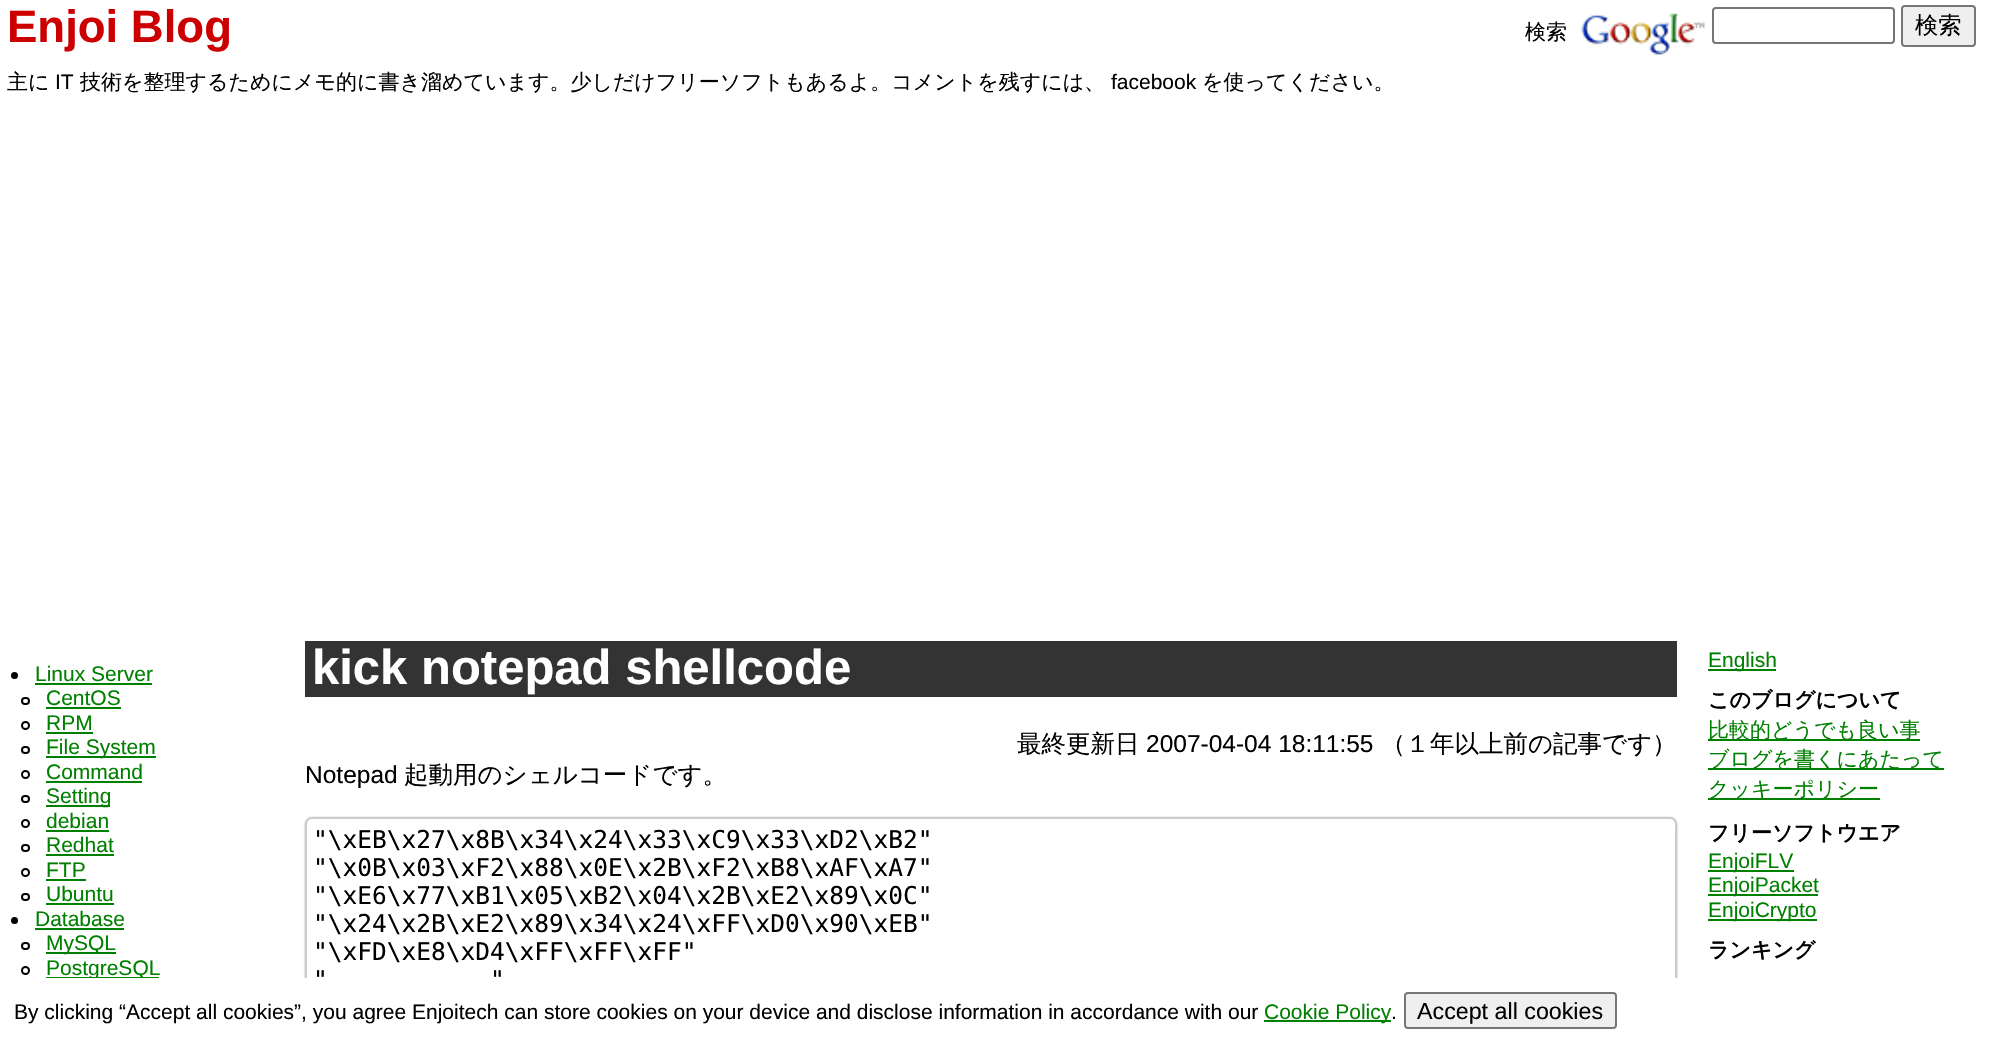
void draw(SkCanvas* canvas) {
	SkPaint paint;
	paint.setAntiAlias(true);
	canvas->clear(0xffffffff);
	SkFont f1(fontMgr->matchFamilyStyle("Liberation Sans", SkFontStyle::Bold()), 45.5);
	f1.setSubpixel(true);
	paint.setColor(0xffcc0000);
	canvas->drawString("Enjoi Blog", 7, 42, f1, paint);
	SkFont f2(fontMgr->matchFamilyStyle("WenQuanYi Zen Hei", SkFontStyle(500, SkFontStyle::kNormal_Width, SkFontStyle::kUpright_Slant)), 21);
	f2.setSubpixel(true);
	paint.setColor(0xff000000);
	canvas->drawString("検索", 1525, 39, f2, paint);
	canvas->drawImageRect(SkImages::DeferredFromEncodedData(SkData::MakeFromFileName("img1.png")), SkRect::MakeXYWH(1581, 13, 124, 42), SkSamplingOptions());
	paint.setStroke(true);
	paint.setStrokeWidth(2);
	paint.setColor(0xff767676);
	canvas->drawRoundRect(SkRect::MakeXYWH(1713, 8, 181, 35), 3, 3, paint);
	paint.setStroke(false);
	paint.setColor(0xffefefef);
	canvas->drawRoundRect(SkRect::MakeXYWH(1902, 6, 73, 40), 3, 3, paint);
	paint.setStroke(true);
	paint.setColor(0xff767676);
	canvas->drawRoundRect(SkRect::MakeXYWH(1902, 6, 73, 40), 3, 3, paint);
	SkFont f3(fontMgr->matchFamilyStyle("WenQuanYi Zen Hei", SkFontStyle(500, SkFontStyle::kNormal_Width, SkFontStyle::kUpright_Slant)), 23.25);
	f3.setSubpixel(true);
	paint.setStroke(false);
	paint.setColor(0xff000000);
	canvas->drawString("検索", 1915, 33, f3, paint);
	canvas->drawString("主に", 7, 89, f2, paint);
	SkFont f4(fontMgr->matchFamilyStyle("Liberation Sans", SkFontStyle::Normal()), 21);
	f4.setSubpixel(true);
	canvas->drawString("IT", 55, 89, f4, paint);
	canvas->drawString("技術を整理するためにメモ的に書き溜めています。少しだけフリーソフトもあるよ。コメントを残すには、", 80, 89, f2, paint);
	canvas->drawString("facebook", 1111, 89, f4, paint);
	canvas->drawString("を使ってください。", 1202, 89, f2, paint);
	canvas->drawCircle(14.5, 675.5, 3.5, paint);
	paint.setColor(0xff008000);
	canvas->drawString("Linux Server", 35, 681, f4, paint);
	canvas->drawRect(SkRect::MakeXYWH(35, 683, 117, 2), paint);
	paint.setStroke(true);
	paint.setColor(0xff000000);
	canvas->drawRoundRect(SkRect::MakeXYWH(22, 698, 7, 6), 3, 3, paint);
	paint.setStroke(false);
	paint.setColor(0xff008000);
	canvas->drawString("CentOS", 46, 705, f4, paint);
	canvas->drawRect(SkRect::MakeXYWH(46, 707, 75, 2), paint);
	paint.setStroke(true);
	paint.setColor(0xff000000);
	canvas->drawCircle(25.5, 725.5, 3.5, paint);
	paint.setStroke(false);
	paint.setColor(0xff008000);
	canvas->drawString("RPM", 46, 730, f4, paint);
	canvas->drawRect(SkRect::MakeXYWH(46, 732, 47, 2), paint);
	paint.setStroke(true);
	paint.setColor(0xff000000);
	canvas->drawRoundRect(SkRect::MakeXYWH(22, 747, 7, 6), 3, 3, paint);
	paint.setStroke(false);
	paint.setColor(0xff008000);
	canvas->drawRect(SkRect::MakeXYWH(46, 756, 110, 2), paint);
	canvas->drawString("File System", 46, 754, f4, paint);
	paint.setStroke(true);
	paint.setColor(0xff000000);
	canvas->drawCircle(25.5, 774.5, 3.5, paint);
	paint.setStroke(false);
	paint.setColor(0xff008000);
	canvas->drawString("Command", 46, 779, f4, paint);
	canvas->drawRect(SkRect::MakeXYWH(46, 781, 96, 2), paint);
	paint.setStroke(true);
	paint.setColor(0xff000000);
	canvas->drawRoundRect(SkRect::MakeXYWH(22, 796, 7, 6), 3, 3, paint);
	paint.setStroke(false);
	paint.setColor(0xff008000);
	canvas->drawRect(SkRect::MakeXYWH(46, 805, 64, 2), paint);
	canvas->drawString("Setting", 46, 803, f4, paint);
	paint.setStroke(true);
	paint.setColor(0xff000000);
	canvas->drawCircle(25.5, 823.5, 3.5, paint);
	paint.setStroke(false);
	paint.setColor(0xff008000);
	canvas->drawString("debian", 46, 828, f4, paint);
	canvas->drawRect(SkRect::MakeXYWH(46, 830, 63, 2), paint);
	paint.setStroke(true);
	paint.setColor(0xff000000);
	canvas->drawRoundRect(SkRect::MakeXYWH(22, 845, 7, 6), 3, 3, paint);
	paint.setStroke(false);
	paint.setColor(0xff008000);
	canvas->drawString("Redhat", 46, 852, f4, paint);
	canvas->drawRect(SkRect::MakeXYWH(46, 854, 68, 2), paint);
	paint.setStroke(true);
	paint.setColor(0xff000000);
	canvas->drawCircle(25.5, 872.5, 3.5, paint);
	paint.setStroke(false);
	paint.setColor(0xff008000);
	canvas->drawString("FTP", 46, 877, f4, paint);
	canvas->drawRect(SkRect::MakeXYWH(46, 879, 40, 2), paint);
	paint.setStroke(true);
	paint.setColor(0xff000000);
	canvas->drawRoundRect(SkRect::MakeXYWH(22, 894, 7, 6), 3, 3, paint);
	paint.setStroke(false);
	paint.setColor(0xff008000);
	canvas->drawString("Ubuntu", 46, 901, f4, paint);
	canvas->drawRect(SkRect::MakeXYWH(46, 903, 68, 2), paint);
	paint.setColor(0xff000000);
	canvas->drawCircle(14.5, 920.5, 3.5, paint);
	paint.setColor(0xff008000);
	canvas->drawString("Database", 35, 926, f4, paint);
	canvas->drawRect(SkRect::MakeXYWH(35, 928, 89, 2), paint);
	paint.setStroke(true);
	paint.setColor(0xff000000);
	canvas->drawRoundRect(SkRect::MakeXYWH(22, 943, 7, 6), 3, 3, paint);
	paint.setStroke(false);
	paint.setColor(0xff008000);
	canvas->drawRect(SkRect::MakeXYWH(46, 952, 70, 2), paint);
	canvas->drawString("MySQL", 46, 950, f4, paint);
	paint.setStroke(true);
	paint.setColor(0xff000000);
	canvas->drawCircle(25.5, 970.5, 3.5, paint);
	paint.setStroke(false);
	paint.setColor(0xff008000);
	canvas->drawRect(SkRect::MakeXYWH(46, 977, 113, 1), paint);
	canvas->drawString("PostgreSQL", 46, 975, f4, paint);
	paint.setColor(0xff333333);
	canvas->drawRect(SkRect::MakeXYWH(305, 641, 1372, 56), paint);
	SkFont f5(fontMgr->matchFamilyStyle("Liberation Sans", SkFontStyle::Bold()), 49);
	f5.setSubpixel(true);
	paint.setColor(0xffffffff);
	canvas->drawString("kick notepad shellcode", 312, 684, f5, paint);
	SkFont f6(fontMgr->matchFamilyStyle("WenQuanYi Zen Hei", SkFontStyle(500, SkFontStyle::kNormal_Width, SkFontStyle::kUpright_Slant)), 24.5);
	f6.setSubpixel(true);
	paint.setColor(0xff000000);
	canvas->drawString("最終更新日", 1017, 752, f6, paint);
	SkFont f7(fontMgr->matchFamilyStyle("Liberation Sans", SkFontStyle::Normal()), 24.5);
	f7.setSubpixel(true);
	canvas->drawString("2007-04-04 18:11:55", 1146, 752, f7, paint);
	canvas->drawString("（１年以上前の記事です）", 1381, 752, f6, paint);
	canvas->drawString("Notepad", 305, 783, f7, paint);
	canvas->drawString("起動用のシェルコードです。", 404, 783, f6, paint);
	paint.setColor(0x809ca5b5);
	paint.setMaskFilter(SkMaskFilter::MakeBlur(kNormal_SkBlurStyle, 1));
	canvas->drawRoundRect(SkRect::MakeXYWH(305, 819, 1372, 186), 7, 7, paint);
	paint.setMaskFilter(nullptr);
	paint.setColor(0x999ca5b5);
	paint.setMaskFilter(SkMaskFilter::MakeBlur(kNormal_SkBlurStyle, 1));
	canvas->drawRoundRect(SkRect::MakeXYWH(305, 817, 1372, 186), 7, 7, paint);
	paint.setMaskFilter(nullptr);
	paint.setColor(0xffffffff);
	canvas->drawRoundRect(SkRect::MakeXYWH(306, 818, 1370, 184), 6, 6, paint);
	paint.setStroke(true);
	paint.setColor(0xffcccccc);
	canvas->drawRoundRect(SkRect::MakeXYWH(306, 818, 1370, 184), 6, 6, paint);
	SkFont f8(fontMgr->matchFamilyStyle("DejaVu Sans Mono", SkFontStyle::Normal()), 24.5);
	f8.setSubpixel(true);
	paint.setStroke(false);
	paint.setColor(0xff000000);
	canvas->drawString("\"\\xEB\\x27\\x8B\\x34\\x24\\x33\\xC9\\x33\\xD2\\xB2\"", 313, 848, f8, paint);
	canvas->drawString("\"\\x0B\\x03\\xF2\\x88\\x0E\\x2B\\xF2\\xB8\\xAF\\xA7\"", 313, 876, f8, paint);
	canvas->drawString("\"\\xE6\\x77\\xB1\\x05\\xB2\\x04\\x2B\\xE2\\x89\\x0C\"", 313, 904, f8, paint);
	canvas->drawString("\"\\x24\\x2B\\xE2\\x89\\x34\\x24\\xFF\\xD0\\x90\\xEB\"", 313, 932, f8, paint);
	canvas->drawString("\"\\xFD\\xE8\\xD4\\xFF\\xFF\\xFF\"", 313, 960, f8, paint);
	canvas->drawString("\"", 313, 988, f8, paint);
	canvas->drawString("\"", 490, 988, f8, paint);
	paint.setColor(0xff008000);
	canvas->drawRect(SkRect::MakeXYWH(1708, 669, 68, 2), paint);
	canvas->drawString("English", 1708, 667, f4, paint);
	SkFont f9(fontMgr->matchFamilyStyle("WenQuanYi Zen Hei", SkFontStyle::Bold()), 21);
	f9.setSubpixel(true);
	paint.setColor(0xff000000);
	canvas->drawString("このブログについて", 1708, 707, f9, paint);
	paint.setColor(0xff008000);
	canvas->drawRect(SkRect::MakeXYWH(1708, 739, 212, 2), paint);
	canvas->drawString("比較的どうでも良い事", 1708, 737, f2, paint);
	canvas->drawRect(SkRect::MakeXYWH(1708, 768, 236, 2), paint);
	canvas->drawString("ブログを書くにあたって", 1708, 766, f2, paint);
	canvas->drawRect(SkRect::MakeXYWH(1708, 798, 172, 2), paint);
	canvas->drawString("クッキーポリシー", 1708, 796, f2, paint);
	paint.setColor(0xff000000);
	canvas->drawString("フリーソフトウエア", 1708, 840, f9, paint);
	paint.setColor(0xff008000);
	canvas->drawRect(SkRect::MakeXYWH(1708, 870, 86, 2), paint);
	canvas->drawString("EnjoiFLV", 1708, 868, f4, paint);
	canvas->drawRect(SkRect::MakeXYWH(1708, 894, 110, 2), paint);
	canvas->drawString("EnjoiPacket", 1708, 892, f4, paint);
	canvas->drawRect(SkRect::MakeXYWH(1708, 919, 109, 2), paint);
	canvas->drawString("EnjoiCrypto", 1708, 917, f4, paint);
	paint.setColor(0xff000000);
	canvas->drawString("ランキング", 1708, 957, f9, paint);
	paint.setColor(0xffffffff);
	canvas->drawRect(SkRect::MakeXYWH(89, 978, 1590, 29), paint);
	paint.setColor(0xff000000);
	canvas->drawString("By clicking “Accept all cookies”, you agree Enjoitech can store cookies on your device and disclose information in accordance with our", 14, 1019, f4, paint);
	paint.setColor(0xff008000);
	canvas->drawRect(SkRect::MakeXYWH(1264, 1020, 127, 2), paint);
	canvas->drawString("Cookie Policy", 1264, 1019, f4, paint);
	paint.setColor(0xff000000);
	canvas->drawString(".", 1391, 1019, f4, paint);
	paint.setColor(0xffefefef);
	canvas->drawRoundRect(SkRect::MakeXYWH(1405, 993, 211, 35), 3, 3, paint);
	paint.setStroke(true);
	paint.setColor(0xff767676);
	canvas->drawRoundRect(SkRect::MakeXYWH(1405, 993, 211, 35), 3, 3, paint);
	SkFont f10(fontMgr->matchFamilyStyle("Liberation Sans", SkFontStyle::Normal()), 23.25);
	f10.setSubpixel(true);
	paint.setStroke(false);
	paint.setColor(0xff000000);
	canvas->drawString("Accept all cookies", 1417, 1019, f10, paint);
}
